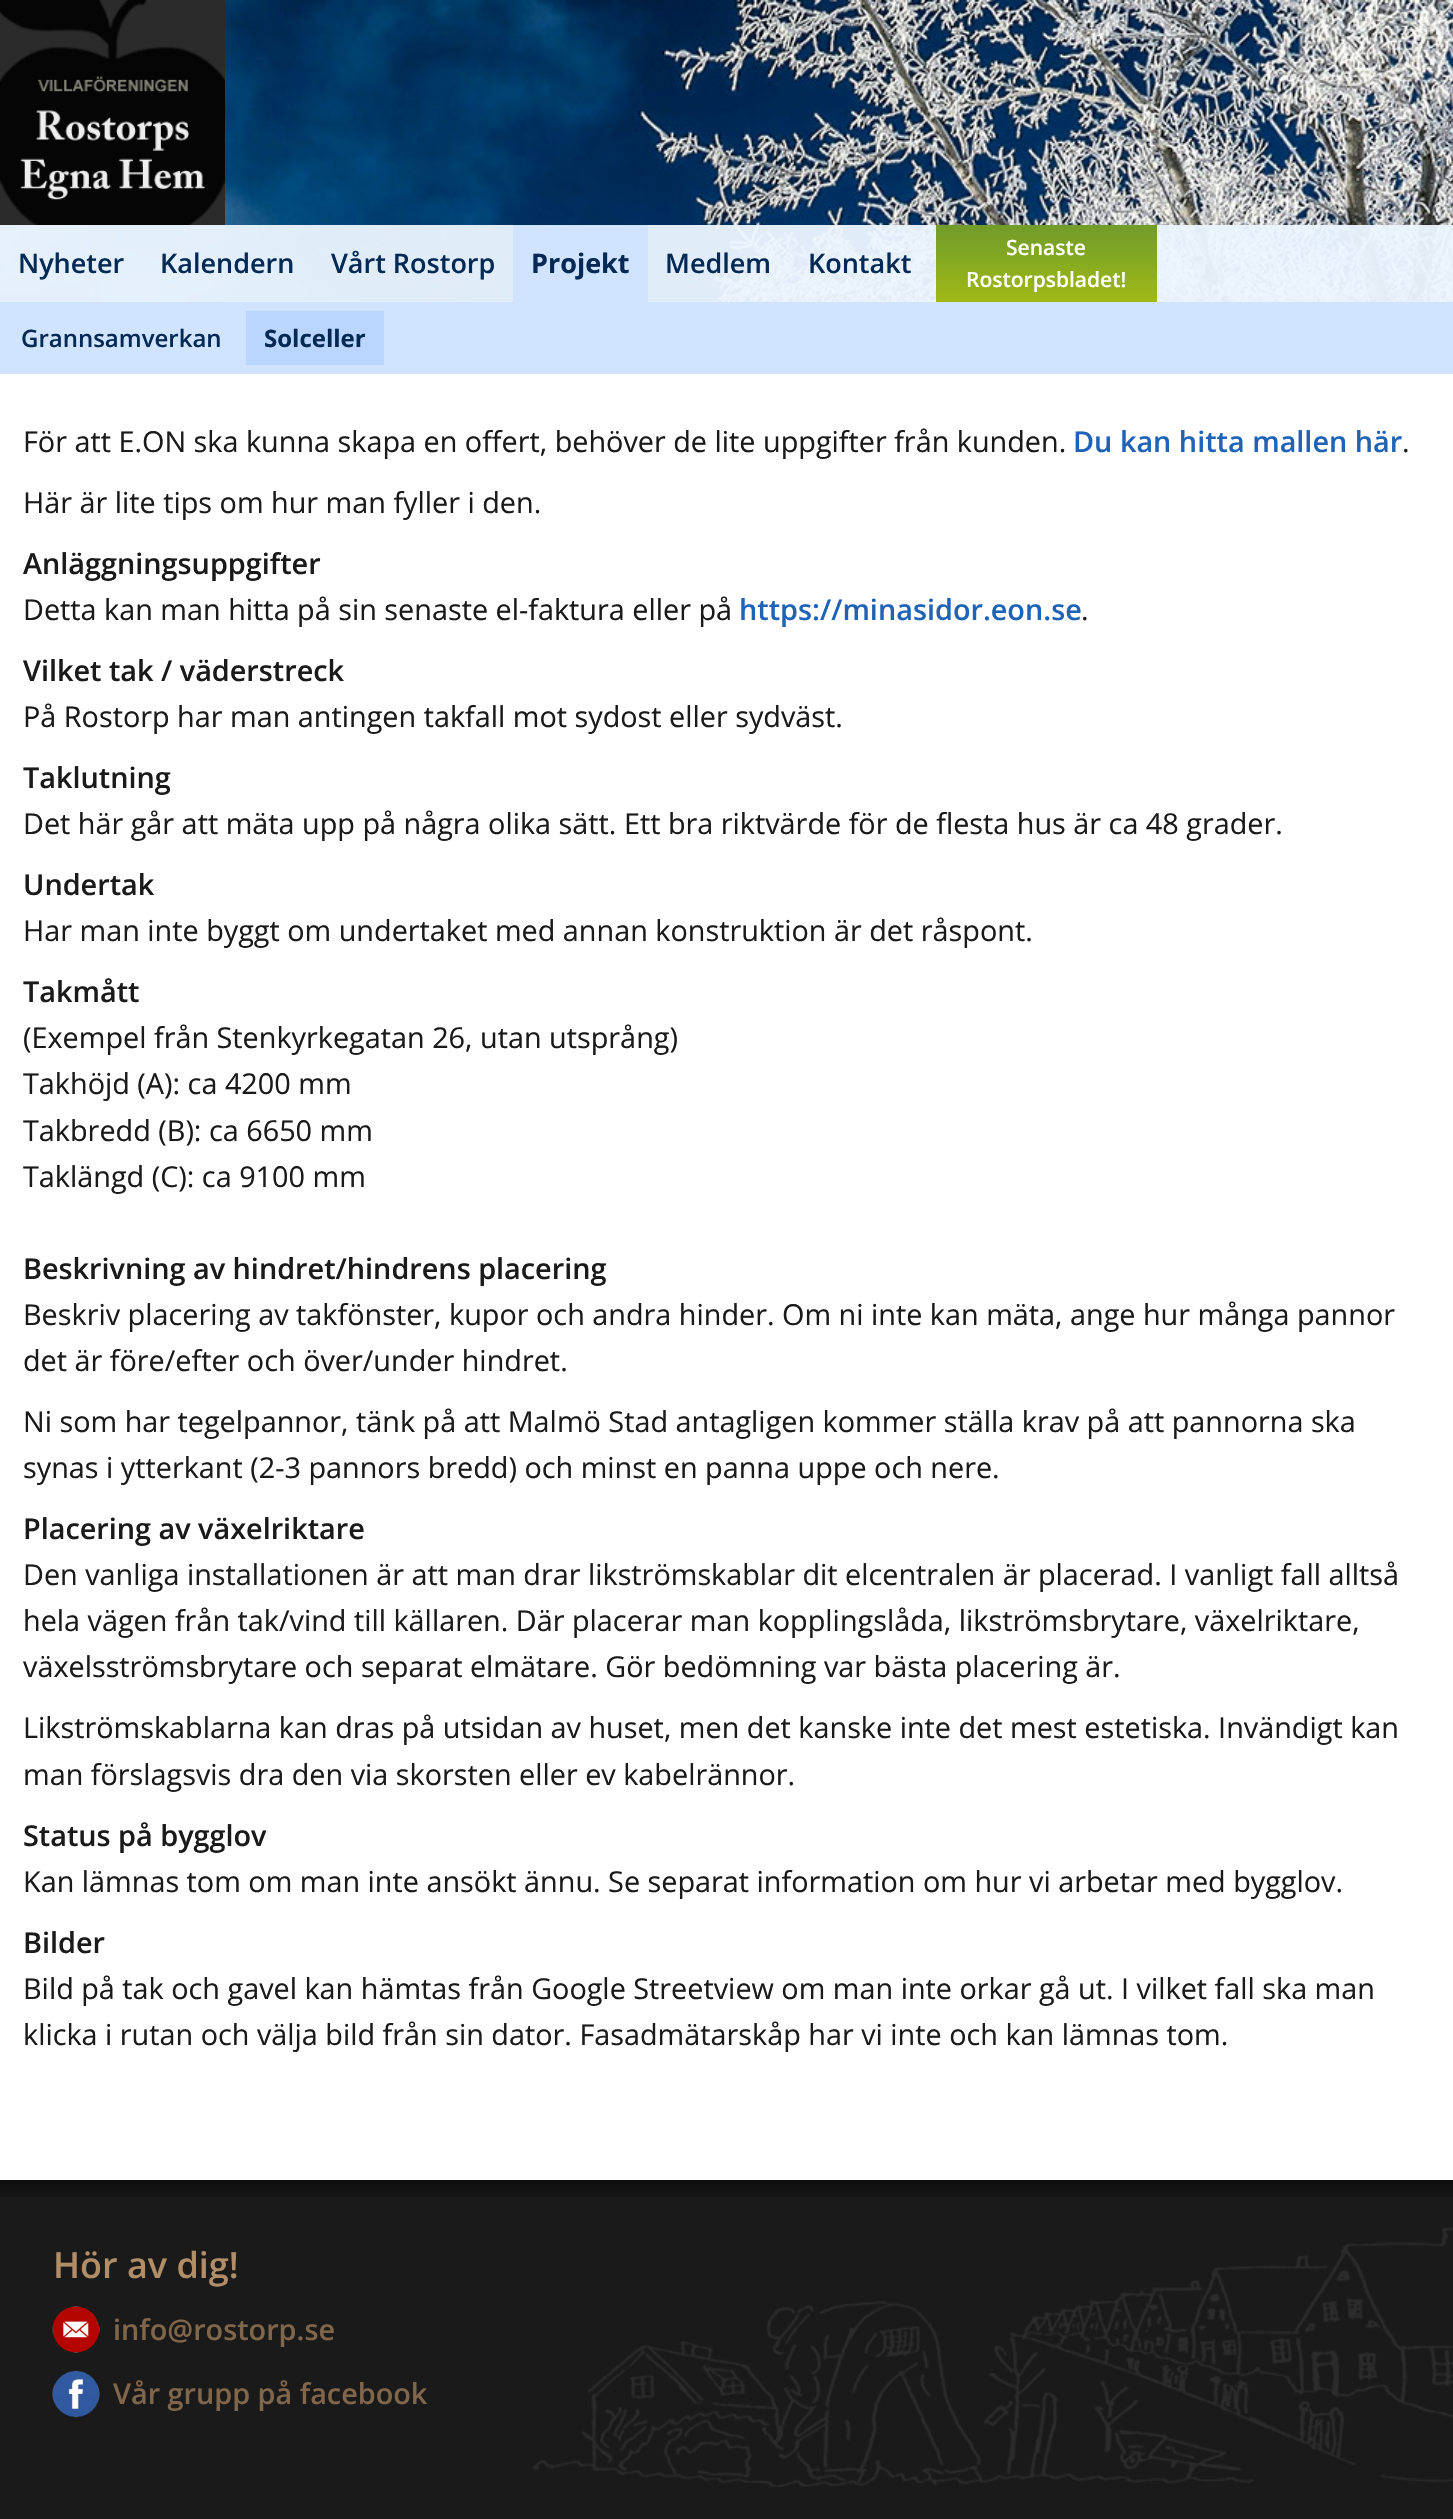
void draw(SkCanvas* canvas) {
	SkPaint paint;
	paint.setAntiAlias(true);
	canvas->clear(0xff1a1a1a);
	paint.setColor(0xffaaaaaa);
	canvas->drawRect(SkRect::MakeXYWH(0, 301, 1453, 1), paint);
	canvas->drawImageRect(SkImages::DeferredFromEncodedData(SkData::MakeFromFileName("img1.png")), SkRect::MakeXYWH(0, 0, 1453, 302), SkSamplingOptions());
	canvas->drawImageRect(SkImages::DeferredFromEncodedData(SkData::MakeFromFileName("img2.png")), SkRect::MakeXYWH(0, 0, 225, 225), SkSamplingOptions());
	paint.setColor(0xf2ecf6ff);
	canvas->drawRect(SkRect::MakeXYWH(0, 225, 1453, 77), paint);
	SkFont f1(fontMgr->matchFamilyStyle("Open Sans", SkFontStyle(600, SkFontStyle::kNormal_Width, SkFontStyle::kUpright_Slant)), 27);
	f1.setSubpixel(true);
	paint.setColor(0xff032954);
	canvas->drawString("Nyheter", 18, 273, f1, paint);
	canvas->drawString("Kalendern", 160, 273, f1, paint);
	canvas->drawString("Vårt Rostorp", 331, 273, f1, paint);
	paint.setColor(0xffd1e4ff);
	canvas->drawRect(SkRect::MakeXYWH(513, 225, 135, 77), paint);
	SkFont f2(fontMgr->matchFamilyStyle("Open Sans", SkFontStyle::Bold()), 27);
	f2.setSubpixel(true);
	paint.setColor(0xff032954);
	canvas->drawString("Projekt", 531, 273, f2, paint);
	canvas->drawString("Medlem", 665, 273, f1, paint);
	canvas->drawString("Kontakt", 808, 273, f1, paint);
	{
		const SkColor colors[] = {0xff719c2a, 0xff9fb916};
		const float stops[] = {0, 1};
		const SkPoint ends[] = {{1046, 225}, {1046, 302}};
		paint.setShader(SkGradientShader::MakeLinear(ends, colors, stops, 2, SkTileMode::kClamp));
		paint.setAlpha(255);
	}
	canvas->drawRect(SkRect::MakeXYWH(936, 225, 221, 77), paint);
	SkFont f3(fontMgr->matchFamilyStyle("Open Sans", SkFontStyle(600, SkFontStyle::kNormal_Width, SkFontStyle::kUpright_Slant)), 21);
	f3.setSubpixel(true);
	paint.setShader(nullptr);
	paint.setColor(0xffffffff);
	canvas->drawString("Senaste", 1006, 255, f3, paint);
	canvas->drawString("Rostorpsbladet!", 966, 287, f3, paint);
	paint.setColor(0xffd1e4ff);
	canvas->drawRect(SkRect::MakeXYWH(0, 302, 1453, 72), paint);
	SkFont f4(fontMgr->matchFamilyStyle("Open Sans", SkFontStyle(600, SkFontStyle::kNormal_Width, SkFontStyle::kUpright_Slant)), 24);
	f4.setSubpixel(true);
	paint.setColor(0xff032954);
	canvas->drawString("Grannsamverkan", 21, 347, f4, paint);
	paint.setColor(0xffbad6ff);
	canvas->drawRect(SkRect::MakeXYWH(246, 311, 138, 54), paint);
	SkFont f5(fontMgr->matchFamilyStyle("Open Sans", SkFontStyle::Bold()), 24);
	f5.setSubpixel(true);
	paint.setColor(0xff032954);
	canvas->drawString("Solceller", 264, 347, f5, paint);
	paint.setColor(0xffffffff);
	canvas->drawRect(SkRect::MakeXYWH(0, 374, 1453, 1806), paint);
	SkFont f6(fontMgr->matchFamilyStyle("Open Sans", SkFontStyle::Normal()), 28.8);
	f6.setSubpixel(true);
	paint.setColor(0xff1a1a1a);
	canvas->drawString("För att E.ON ska kunna skapa en offert, behöver de lite uppgifter från kunden.", 23, 452, f6, paint);
	SkFont f7(fontMgr->matchFamilyStyle("Open Sans", SkFontStyle(600, SkFontStyle::kNormal_Width, SkFontStyle::kUpright_Slant)), 28.8);
	f7.setSubpixel(true);
	paint.setColor(0xff1f63b7);
	canvas->drawString("Du kan hitta mallen här", 1073, 452, f7, paint);
	paint.setColor(0xff1a1a1a);
	canvas->drawString(".", 1402, 452, f6, paint);
	canvas->drawString("Här är lite tips om hur man fyller i den.", 23, 513, f6, paint);
	canvas->drawString("Anläggningsuppgifter", 23, 574, f7, paint);
	canvas->drawString("Detta kan man hitta på sin senaste el-faktura eller på", 23, 620, f6, paint);
	paint.setColor(0xff1f63b7);
	canvas->drawString("https://minasidor.eon.se", 739, 620, f7, paint);
	paint.setColor(0xff1a1a1a);
	canvas->drawString(".", 1081, 620, f6, paint);
	canvas->drawString("Vilket tak / väderstreck", 23, 681, f7, paint);
	canvas->drawString("På Rostorp har man antingen takfall mot sydost eller sydväst.", 23, 727, f6, paint);
	canvas->drawString("Taklutning", 23, 788, f7, paint);
	canvas->drawString("Det här går att mäta upp på några olika sätt. Ett bra riktvärde för de flesta hus är ca 48 grader.", 23, 834, f6, paint);
	canvas->drawString("Undertak", 23, 895, f7, paint);
	canvas->drawString("Har man inte byggt om undertaket med annan konstruktion är det råspont.", 23, 941, f6, paint);
	canvas->drawString("Takmått", 23, 1002, f7, paint);
	canvas->drawString("(Exempel från Stenkyrkegatan 26, utan utsprång)", 23, 1048, f6, paint);
	canvas->drawString("Takhöjd (A): ca 4200 mm", 23, 1094, f6, paint);
	canvas->drawString("Takbredd (B): ca 6650 mm", 23, 1141, f6, paint);
	canvas->drawString("Taklängd (C): ca 9100 mm", 23, 1187, f6, paint);
	canvas->drawString("Beskrivning av hindret/hindrens placering", 23, 1279, f7, paint);
	canvas->drawString("Beskriv placering av takfönster, kupor och andra hinder. Om ni inte kan mäta, ange hur många pannor", 23, 1325, f6, paint);
	canvas->drawString("det är före/efter och över/under hindret.", 23, 1371, f6, paint);
	canvas->drawString("Ni som har tegelpannor, tänk på att Malmö Stad antagligen kommer ställa krav på att pannorna ska", 23, 1432, f6, paint);
	canvas->drawString("synas i ytterkant (2-3 pannors bredd) och minst en panna uppe och nere.", 23, 1478, f6, paint);
	canvas->drawString("Placering av växelriktare", 23, 1539, f7, paint);
	canvas->drawString("Den vanliga installationen är att man drar likströmskablar dit elcentralen är placerad. I vanligt fall alltså", 23, 1585, f6, paint);
	canvas->drawString("hela vägen från tak/vind till källaren. Där placerar man kopplingslåda, likströmsbrytare, växelriktare,", 23, 1631, f6, paint);
	canvas->drawString("växelsströmsbrytare och separat elmätare. Gör bedömning var bästa placering är.", 23, 1677, f6, paint);
	canvas->drawString("Likströmskablarna kan dras på utsidan av huset, men det kanske inte det mest estetiska. Invändigt kan", 23, 1738, f6, paint);
	canvas->drawString("man förslagsvis dra den via skorsten eller ev kabelrännor.", 23, 1785, f6, paint);
	canvas->drawString("Status på bygglov", 23, 1846, f7, paint);
	canvas->drawString("Kan lämnas tom om man inte ansökt ännu. Se separat information om hur vi arbetar med bygglov.", 23, 1892, f6, paint);
	canvas->drawString("Bilder", 23, 1953, f7, paint);
	canvas->drawString("Bild på tak och gavel kan hämtas från Google Streetview om man inte orkar gå ut. I vilket fall ska man", 23, 1999, f6, paint);
	canvas->drawString("klicka i rutan och välja bild från sin dator. Fasadmätarskåp har vi inte och kan lämnas tom.", 23, 2045, f6, paint);
	canvas->drawImageRect(SkImages::DeferredFromEncodedData(SkData::MakeFromFileName("img3.png")), SkRect::MakeXYWH(0, 2180, 1453, 17), SkSamplingOptions());
	canvas->drawImageRect(SkImages::DeferredFromEncodedData(SkData::MakeFromFileName("img4.png")), SkRect::MakeXYWH(533, 2227, 920, 260), SkSamplingOptions());
	SkFont f8(fontMgr->matchFamilyStyle("Open Sans", SkFontStyle(600, SkFontStyle::kNormal_Width, SkFontStyle::kUpright_Slant)), 36);
	f8.setSubpixel(true);
	paint.setColor(0xffb28e68);
	canvas->drawString("Hör av dig!", 53, 2278, f8, paint);
	canvas->drawImageRect(SkImages::DeferredFromEncodedData(SkData::MakeFromFileName("img5.png")), SkRect::MakeXYWH(52, 2306, 48, 47), SkSamplingOptions());
	paint.setColor(0xff80664b);
	canvas->drawString("info@rostorp.se", 113, 2340, f7, paint);
	canvas->drawImageRect(SkImages::DeferredFromEncodedData(SkData::MakeFromFileName("img6.png")), SkRect::MakeXYWH(52, 2370, 48, 48), SkSamplingOptions());
	canvas->drawString("Vår grupp på facebook", 113, 2404, f7, paint);
}
